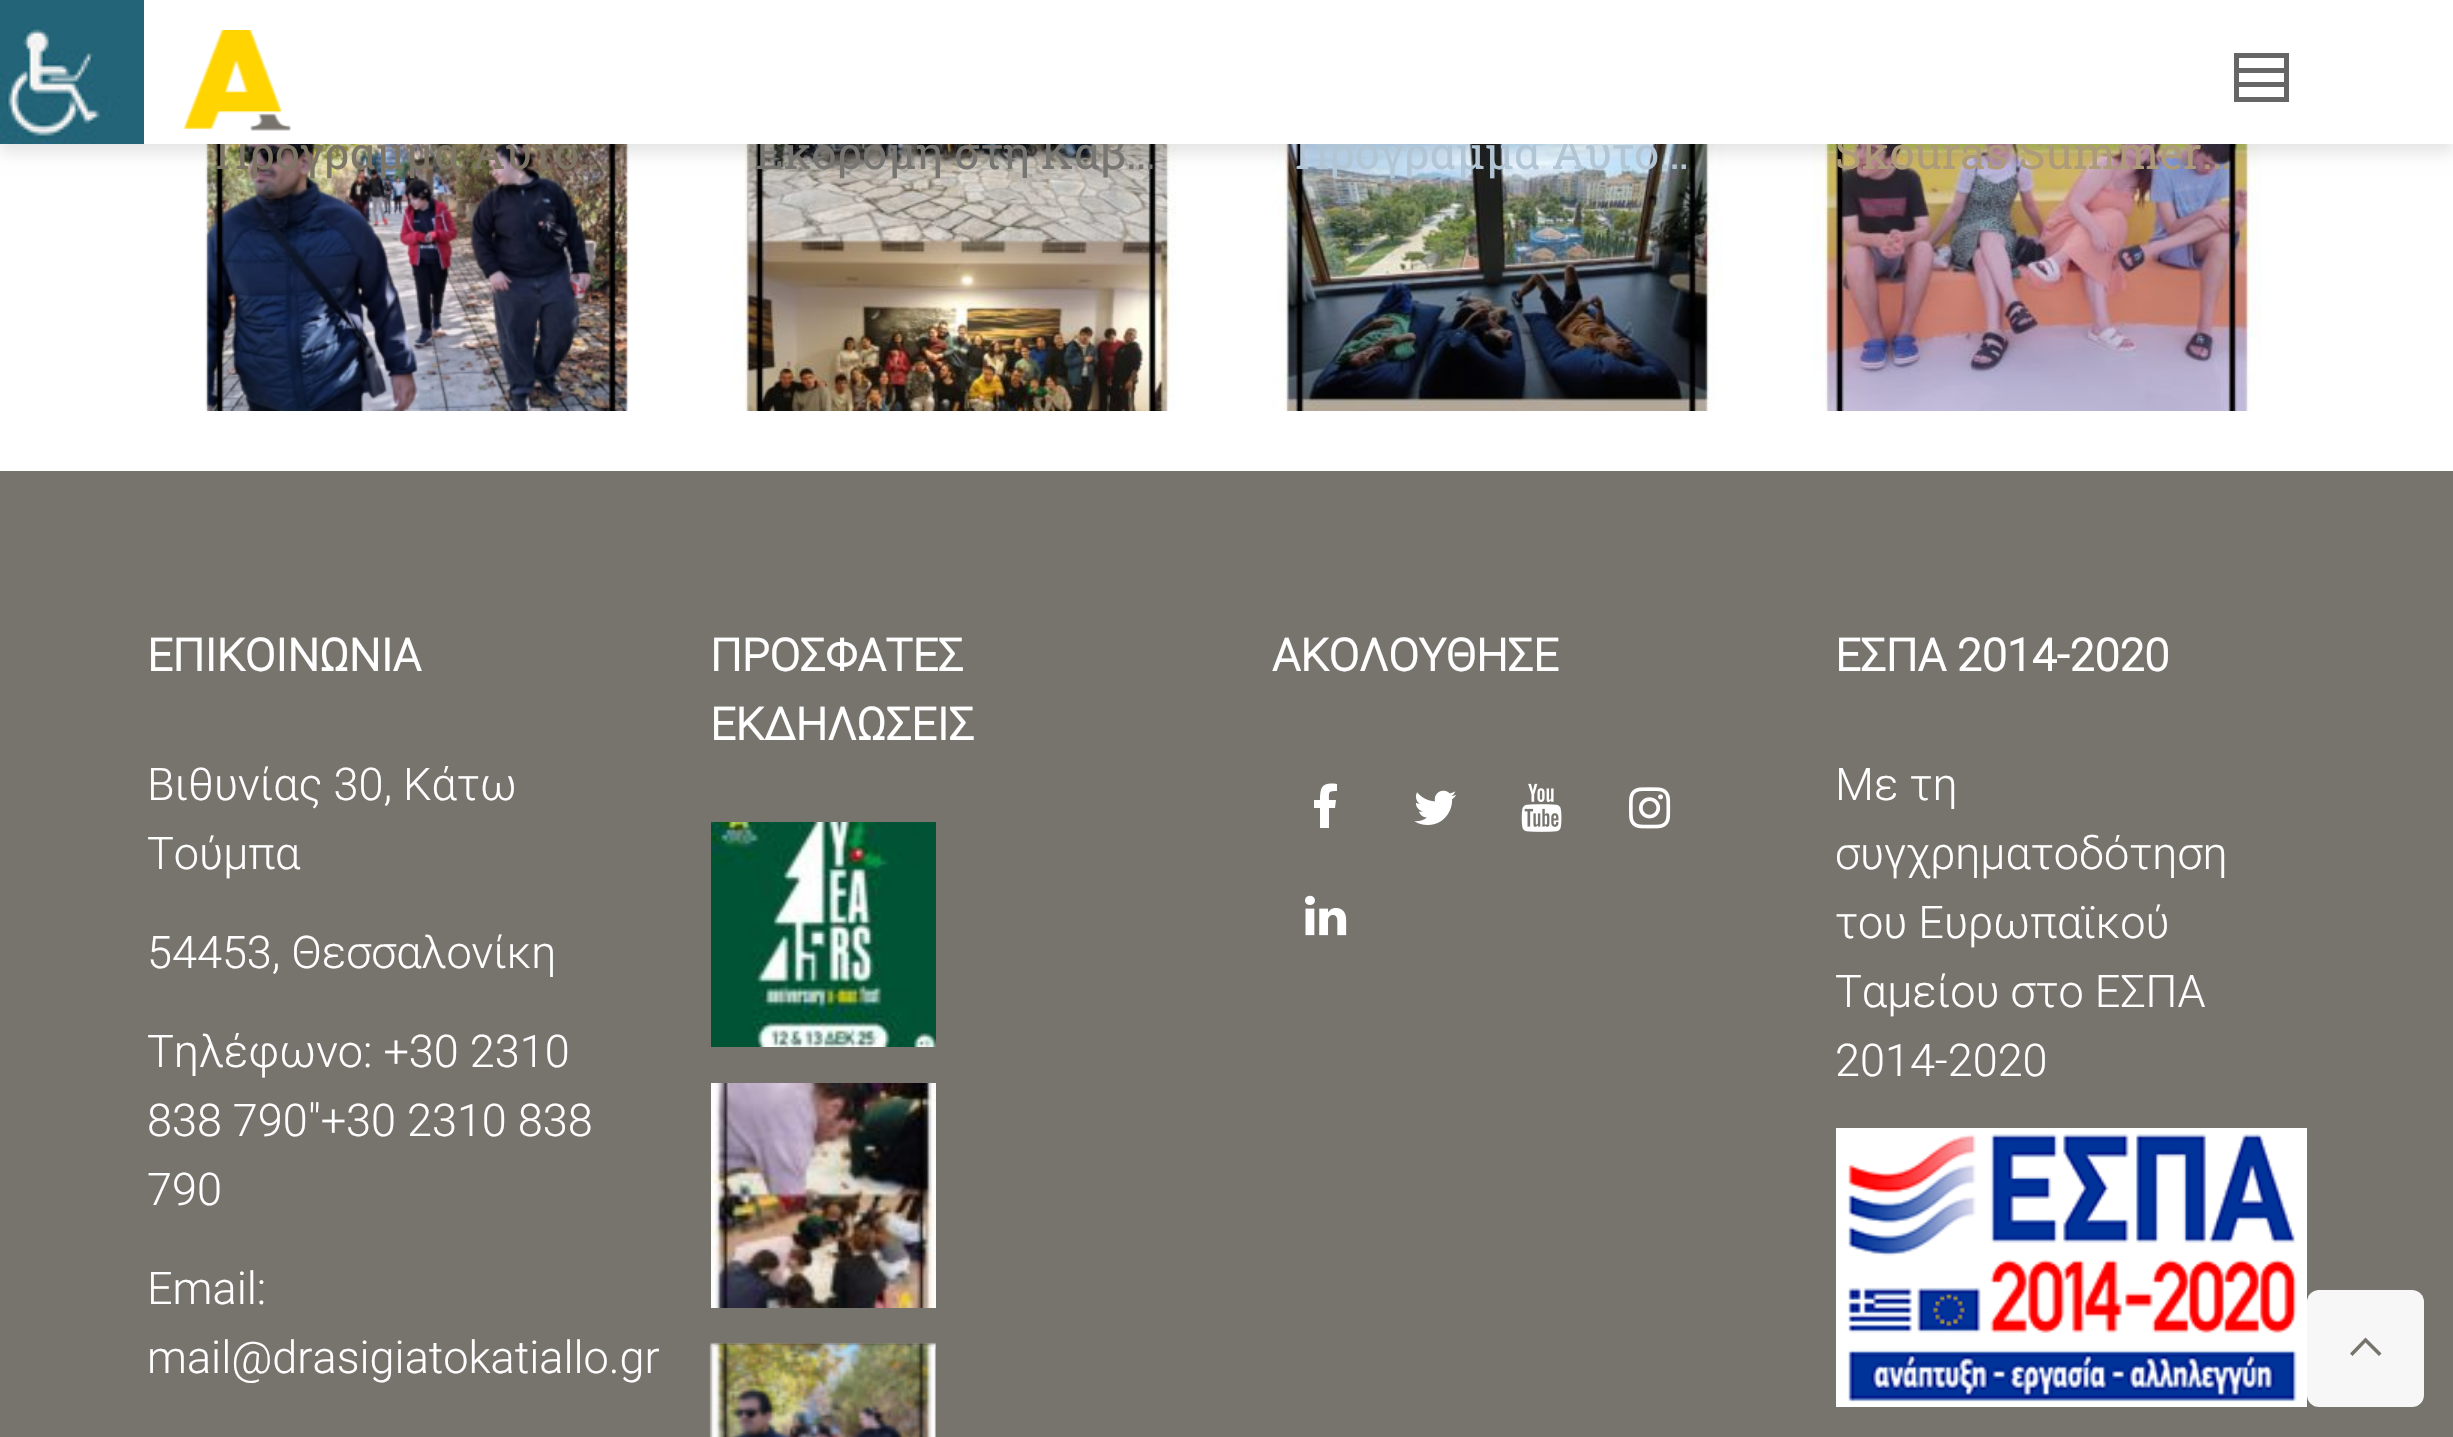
void draw(SkCanvas* canvas) {
	SkPaint paint;
	paint.setAntiAlias(true);
	auto svgPath = [&](const char* data, bool evenOdd = false) {
		SkPath result = *SkParsePath::FromSVGString(data);
		if (evenOdd) result.setFillType(SkPathFillType::kEvenOdd);
		return result;
	};
	canvas->clear(0xffffffff);
	canvas->drawImageRect(SkImages::DeferredFromEncodedData(SkData::MakeFromFileName("img3.png")), SkRect::MakeXYWH(205, 144, 424, 267), SkSamplingOptions());
	canvas->drawImageRect(SkImages::DeferredFromEncodedData(SkData::MakeFromFileName("img4.png")), SkRect::MakeXYWH(732, 144, 444, 267), SkSamplingOptions());
	canvas->drawImageRect(SkImages::DeferredFromEncodedData(SkData::MakeFromFileName("img5.png")), SkRect::MakeXYWH(1272, 144, 450, 267), SkSamplingOptions());
	canvas->drawImageRect(SkImages::DeferredFromEncodedData(SkData::MakeFromFileName("img6.png")), SkRect::MakeXYWH(1812, 144, 450, 267), SkSamplingOptions());
	paint.setColor(0x1a000000);
	paint.setMaskFilter(SkMaskFilter::MakeBlur(kNormal_SkBlurStyle, 7.5));
	canvas->drawRect(SkRect::MakeXYWH(0, 9, 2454, 144), paint);
	paint.setMaskFilter(nullptr);
	canvas->drawImageRect(SkImages::DeferredFromEncodedData(SkData::MakeFromFileName("img1.png")), SkRect::MakeXYWH(0, 0, 144, 144), SkSamplingOptions());
	SkFont f1(fontMgr->matchFamilyStyle("Roboto Slab", SkFontStyle::Normal()), 45);
	f1.setSubpixel(true);
	paint.setColor(0xff7d7566);
	canvas->drawString("Πρόγραμμα Αυτό…", 215, 169, f1, paint);
	paint.setColor(0xff777571);
	canvas->drawString("Εκδρομή στη Καβ…", 755, 169, f1, paint);
	paint.setColor(0xffb2c5d4);
	canvas->drawString("Πρόγραμμα Αυτό…", 1295, 169, f1, paint);
	paint.setColor(0xffad9a7b);
	canvas->drawString("Skouras Summer…", 1835, 169, f1, paint);
	paint.setColor(0xffffffff);
	canvas->drawRect(SkRect::MakeXYWH(144, 0, 2309, 144), paint);
	canvas->drawImageRect(SkImages::DeferredFromEncodedData(SkData::MakeFromFileName("img2.png")), SkRect::MakeXYWH(183, 30, 108, 101), SkSamplingOptions());
	paint.setColor(0xff666666);
	canvas->drawPath(svgPath("M2234 53H2289V102H2234ZM2284 58H2239V68H2284ZM2284 73H2239V82H2284ZM2239 97H2284V87H2239Z"), paint);
	paint.setColor(0xff77736d);
	canvas->drawRect(SkRect::MakeXYWH(0, 471, 2453, 966), paint);
	SkFont f2(fontMgr->matchFamilyStyle("Roboto", SkFontStyle::Bold()), 45);
	f2.setSubpixel(true);
	paint.setColor(0xffffffff);
	canvas->drawString("ΕΠΙΚΟΙΝΩΝΙΑ", 147, 671, f2, paint);
	SkFont f3(fontMgr->matchFamilyStyle("Roboto", SkFontStyle(300, SkFontStyle::kNormal_Width, SkFontStyle::kUpright_Slant)), 45);
	f3.setSubpixel(true);
	canvas->drawString("Βιθυνίας 30, Κάτω", 147, 800, f3, paint);
	canvas->drawString("Τούμπα", 147, 869, f3, paint);
	canvas->drawString("54453, Θεσσαλονίκη", 147, 968, f3, paint);
	canvas->drawString("Τηλέφωνο: +30 2310", 147, 1067, f3, paint);
	canvas->drawString("838 790\"+30 2310 838", 147, 1136, f3, paint);
	canvas->drawString("790", 147, 1205, f3, paint);
	canvas->drawString("Email:", 147, 1304, f3, paint);
	canvas->drawString("mail@drasigiatokatiallo.gr", 147, 1373, f3, paint);
	canvas->drawString("ΠΡΟΣΦΑΤΕΣ", 710, 671, f2, paint);
	canvas->drawString("ΕΚΔΗΛΩΣΕΙΣ", 710, 740, f2, paint);
	canvas->drawImageRect(SkImages::DeferredFromEncodedData(SkData::MakeFromFileName("img7.png")), SkRect::MakeXYWH(711, 822, 225, 225), SkSamplingOptions());
	canvas->drawImageRect(SkImages::DeferredFromEncodedData(SkData::MakeFromFileName("img8.png")), SkRect::MakeXYWH(711, 1083, 225, 225), SkSamplingOptions());
	paint.setColor(0xff32302d);
	canvas->drawRoundRect(SkRect::MakeXYWH(711, 1344, 225, 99), 6, 6, paint);
	canvas->drawImageRect(SkImages::DeferredFromEncodedData(SkData::MakeFromFileName("img9.png")), SkRect::MakeXYWH(709, 1342, 227, 95), SkSamplingOptions());
	paint.setColor(0xffffffff);
	canvas->drawString("ΑΚΟΛΟΥΘΗΣΕ", 1272, 671, f2, paint);
	canvas->drawPath(svgPath("M1337 784V791C1328 791 1329 792 1329 800H1336L1335 808H1329V828H1320V808H1314V800H1320C1320 787 1322 782 1337 784Z"), paint);
	canvas->drawImageRect(SkImages::DeferredFromEncodedData(SkData::MakeFromFileName("img10.png")), SkRect::MakeXYWH(1414, 790, 43, 35), SkSamplingOptions());
	canvas->drawImageRect(SkImages::DeferredFromEncodedData(SkData::MakeFromFileName("img11.png")), SkRect::MakeXYWH(1521, 783, 41, 49), SkSamplingOptions());
	canvas->drawImageRect(SkImages::DeferredFromEncodedData(SkData::MakeFromFileName("img12.png")), SkRect::MakeXYWH(1629, 787, 42, 42), SkSamplingOptions());
	canvas->drawImageRect(SkImages::DeferredFromEncodedData(SkData::MakeFromFileName("img13.png")), SkRect::MakeXYWH(1305, 895, 42, 41), SkSamplingOptions());
	canvas->drawString("ΕΣΠΑ 2014-2020", 1835, 671, f2, paint);
	canvas->drawString("Με τη", 1835, 800, f3, paint);
	canvas->drawString("συγχρηματοδότηση", 1835, 869, f3, paint);
	canvas->drawString("του Ευρωπαϊκού", 1835, 938, f3, paint);
	canvas->drawString("Ταμείου στο ΕΣΠΑ", 1835, 1007, f3, paint);
	canvas->drawString("2014-2020", 1835, 1076, f3, paint);
	canvas->drawImageRect(SkImages::DeferredFromEncodedData(SkData::MakeFromFileName("img14.png")), SkRect::MakeXYWH(1836, 1128, 471, 279), SkSamplingOptions());
	paint.setColor(0xfff7f7f7);
	canvas->drawRoundRect(SkRect::MakeXYWH(2307, 1290, 117, 117), 12, 12, paint);
	paint.setColor(0xff77736d);
	canvas->drawPath(svgPath("M2379 1356L2365.5 1342.5L2352.5 1356L2350 1353.5L2365.5 1337.5L2381.5 1353.5Z"), paint);
}
